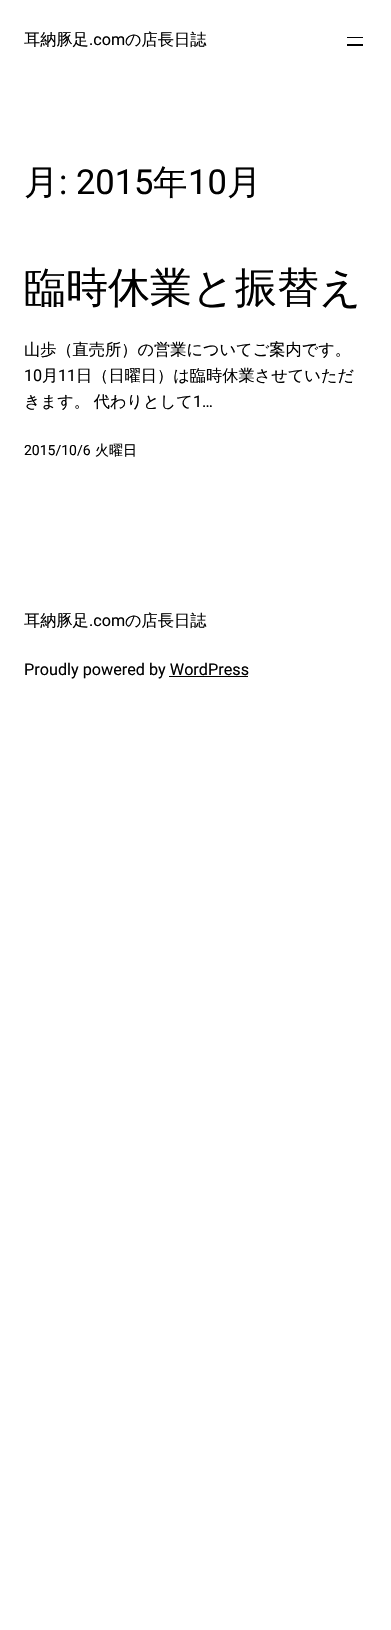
void draw(SkCanvas* canvas) {
	SkPaint paint;
	paint.setAntiAlias(true);
	auto spacedText = [&](const char* s, float x, float y, const SkFont& font, const SkPaint& ink, float letter, float word) {
		std::vector<SkGlyphID> glyphs(font.countText(s, strlen(s), SkTextEncoding::kUTF8));
		std::vector<float> xs(glyphs.size());
		font.textToGlyphs(s, strlen(s), SkTextEncoding::kUTF8, glyphs);
		font.getXPos(glyphs, xs, x);
		float extra = 0;
		for (size_t i = 0; i < glyphs.size(); i++) {
			xs[i] += extra;
			extra += letter + word * (glyphs[i] == font.unicharToGlyph(' '));
		}
		canvas->drawTextBlob(SkTextBlob::MakeFromPosHGlyphs(glyphs, xs, y, font), 0, 0, ink);
	};
	canvas->clear(0xffffffff);
	SkFont f1(fontMgr->matchFamilyStyle("WenQuanYi Zen Hei", SkFontStyle(500, SkFontStyle::kNormal_Width, SkFontStyle::kUpright_Slant)), 16.2);
	f1.setSubpixel(true);
	paint.setColor(0xff000000);
	canvas->drawString("耳納豚足", 24, 45, f1, paint);
	SkFont f2(fontMgr->matchFamilyStyle("Roboto", SkFontStyle::Normal()), 16.2);
	f2.setSubpixel(true);
	canvas->drawString(".com", 89, 45, f2, paint);
	canvas->drawString("の店長日誌", 125, 45, f1, paint);
	canvas->drawRect(SkRect::MakeXYWH(347, 37, 16, 1), paint);
	canvas->drawRect(SkRect::MakeXYWH(347, 44, 16, 2), paint);
	SkFont f3(fontMgr->matchFamilyStyle("WenQuanYi Zen Hei", SkFontStyle(500, SkFontStyle::kNormal_Width, SkFontStyle::kUpright_Slant)), 34.5);
	f3.setSubpixel(true);
	canvas->drawString("月", 24, 194, f3, paint);
	SkFont f4(fontMgr->matchFamilyStyle("Roboto", SkFontStyle::Normal()), 34.5);
	f4.setSubpixel(true);
	canvas->drawString(": 2015", 59, 194, f4, paint);
	canvas->drawString("年", 153, 194, f3, paint);
	canvas->drawString("10", 188, 194, f4, paint);
	canvas->drawString("月", 227, 194, f3, paint);
	SkFont f5(fontMgr->matchFamilyStyle("WenQuanYi Zen Hei", SkFontStyle(500, SkFontStyle::kNormal_Width, SkFontStyle::kUpright_Slant)), 42);
	f5.setSubpixel(true);
	canvas->drawString("臨時休業と振替え", 24, 302, f5, paint);
	canvas->drawString("山歩（直売所）の営業についてご案内です。", 24, 355, f1, paint);
	canvas->drawString("10", 24, 381, f2, paint);
	canvas->drawString("月", 42, 381, f1, paint);
	canvas->drawString("11", 58, 381, f2, paint);
	canvas->drawString("日（日曜日）は臨時休業させていただ", 76, 381, f1, paint);
	spacedText("きます。 代わりとして", 24, 407, f1, paint, 0, -1);
	canvas->drawString("1…", 193, 407, f2, paint);
	SkFont f6(fontMgr->matchFamilyStyle("Roboto", SkFontStyle::Normal()), 14);
	f6.setSubpixel(true);
	canvas->drawString("2015/10/6", 24, 455, f6, paint);
	SkFont f7(fontMgr->matchFamilyStyle("WenQuanYi Zen Hei", SkFontStyle(500, SkFontStyle::kNormal_Width, SkFontStyle::kUpright_Slant)), 14);
	f7.setSubpixel(true);
	canvas->drawString("火曜日", 95, 455, f7, paint);
	canvas->drawString("耳納豚足", 24, 626, f1, paint);
	canvas->drawString(".com", 89, 626, f2, paint);
	canvas->drawString("の店長日誌", 125, 626, f1, paint);
	canvas->drawString("Proudly powered by WordPress", 24, 675, f2, paint);
	canvas->drawRect(SkRect::MakeXYWH(169, 676, 79, 1), paint);
}
